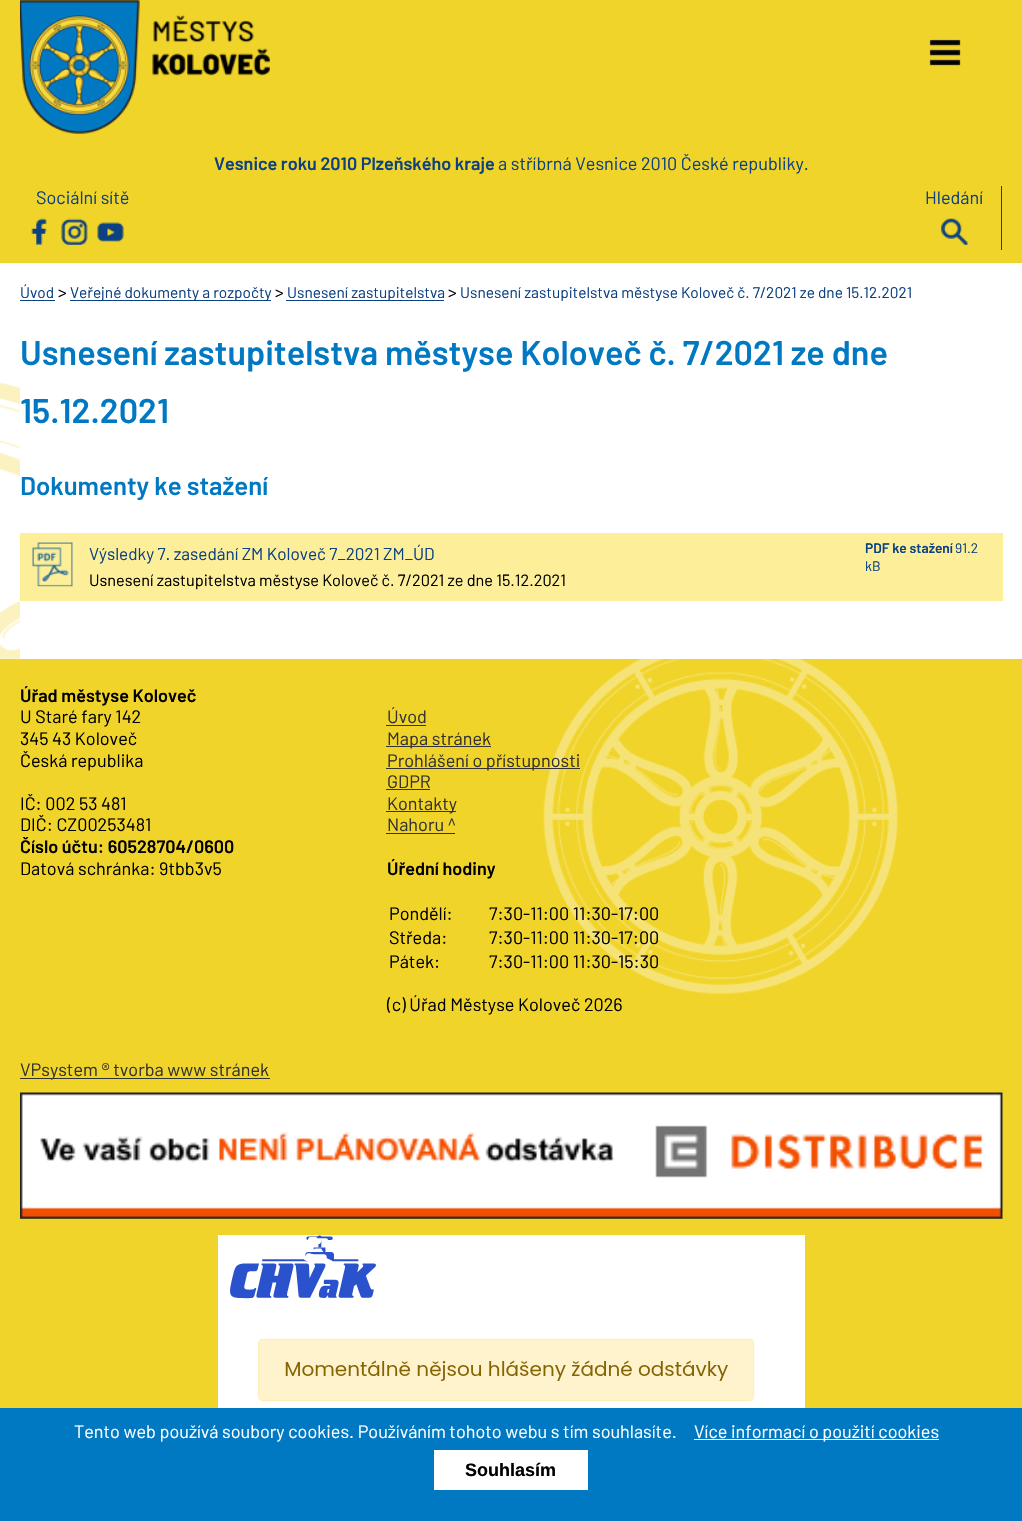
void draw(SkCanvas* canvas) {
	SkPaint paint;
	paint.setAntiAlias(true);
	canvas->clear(0xffffffff);
	paint.setColor(0xfff1d42a);
	canvas->drawRect(SkRect::MakeXYWH(0, 0, 1022, 263), paint);
	canvas->drawImageRect(SkImages::DeferredFromEncodedData(SkData::MakeFromFileName("img1.png")), SkRect::MakeXYWH(20, 0, 250, 134), SkSamplingOptions());
	canvas->drawImageRect(SkImages::DeferredFromEncodedData(SkData::MakeFromFileName("img2.png")), SkRect::MakeXYWH(929, 39, 32, 27), SkSamplingOptions());
	SkFont f1(fontMgr->matchFamilyStyle("Barlow", SkFontStyle(600, SkFontStyle::kNormal_Width, SkFontStyle::kUpright_Slant)), 18);
	f1.setSubpixel(true);
	paint.setColor(0xff0c4182);
	canvas->drawString("Vesnice roku 2010 Plzeňského kraje", 214, 170, f1, paint);
	SkFont f2(fontMgr->matchFamilyStyle("Barlow", SkFontStyle::Normal()), 18);
	f2.setSubpixel(true);
	canvas->drawString("a stříbrná Vesnice 2010 České republiky.", 498, 170, f2, paint);
	canvas->drawString("Sociální sítě", 36, 204, f2, paint);
	canvas->drawImageRect(SkImages::DeferredFromEncodedData(SkData::MakeFromFileName("img3.png")), SkRect::MakeXYWH(31, 218, 16, 27), SkSamplingOptions());
	canvas->drawImageRect(SkImages::DeferredFromEncodedData(SkData::MakeFromFileName("img4.png")), SkRect::MakeXYWH(61, 218, 27, 27), SkSamplingOptions());
	canvas->drawImageRect(SkImages::DeferredFromEncodedData(SkData::MakeFromFileName("img5.png")), SkRect::MakeXYWH(97, 222, 27, 20), SkSamplingOptions());
	canvas->drawRect(SkRect::MakeXYWH(1001, 186, 1, 64), paint);
	canvas->drawString("Hledání", 925, 204, f2, paint);
	canvas->drawImageRect(SkImages::DeferredFromEncodedData(SkData::MakeFromFileName("img6.png")), SkRect::MakeXYWH(941, 218, 27, 27), SkSamplingOptions());
	canvas->drawImageRect(SkImages::DeferredFromEncodedData(SkData::MakeFromFileName("img7.png")), SkRect::MakeXYWH(0, 382, 20, 277), SkSamplingOptions());
	SkFont f3(fontMgr->matchFamilyStyle("Barlow", SkFontStyle::Normal()), 15.4);
	f3.setSubpixel(true);
	canvas->drawString("Úvod", 20, 298, f3, paint);
	canvas->drawRect(SkRect::MakeXYWH(20, 300, 35, 1), paint);
	SkFont f4(fontMgr->matchFamilyStyle("Barlow", SkFontStyle::Normal()), 17.1);
	f4.setSubpixel(true);
	paint.setColor(0xff000000);
	canvas->drawString(">", 58, 298, f4, paint);
	paint.setColor(0xff0c4182);
	canvas->drawRect(SkRect::MakeXYWH(70, 300, 201, 1), paint);
	canvas->drawString("Veřejné dokumenty a rozpočty", 70, 298, f3, paint);
	paint.setColor(0xff000000);
	canvas->drawString(">", 275, 298, f4, paint);
	paint.setColor(0xff0c4182);
	canvas->drawRect(SkRect::MakeXYWH(286, 300, 158, 1), paint);
	canvas->drawString("Usnesení zastupitelstva", 287, 298, f3, paint);
	paint.setColor(0xff000000);
	canvas->drawString(">", 448, 298, f4, paint);
	paint.setColor(0xff0c4182);
	canvas->drawString("Usnesení zastupitelstva městyse Koloveč č. 7/2021 ze dne 15.12.2021", 460, 298, f3, paint);
	SkFont f5(fontMgr->matchFamilyStyle("Barlow", SkFontStyle(600, SkFontStyle::kNormal_Width, SkFontStyle::kUpright_Slant)), 34.2);
	f5.setSubpixel(true);
	paint.setColor(0xff0079c2);
	canvas->drawString("Usnesení zastupitelstva městyse Koloveč č. 7/2021 ze dne", 20, 365, f5, paint);
	canvas->drawString("15.12.2021", 20, 423, f5, paint);
	SkFont f6(fontMgr->matchFamilyStyle("Barlow", SkFontStyle(600, SkFontStyle::kNormal_Width, SkFontStyle::kUpright_Slant)), 25.75);
	f6.setSubpixel(true);
	canvas->drawString("Dokumenty ke stažení", 20, 495, f6, paint);
	paint.setColor(0xfffdef9a);
	canvas->drawRect(SkRect::MakeXYWH(20, 533, 983, 68), paint);
	canvas->drawImageRect(SkImages::DeferredFromEncodedData(SkData::MakeFromFileName("img8.png")), SkRect::MakeXYWH(32, 542, 41, 45), SkSamplingOptions());
	paint.setColor(0xff0c4182);
	canvas->drawString("Výsledky 7. zasedání ZM Koloveč 7_2021 ZM_ÚD", 89, 560, f4, paint);
	SkFont f7(fontMgr->matchFamilyStyle("Barlow", SkFontStyle::Normal()), 16.25);
	f7.setSubpixel(true);
	paint.setColor(0xff000000);
	canvas->drawString("Usnesení zastupitelstva městyse Koloveč č. 7/2021 ze dne 15.12.2021", 89, 586, f7, paint);
	SkFont f8(fontMgr->matchFamilyStyle("Barlow", SkFontStyle(600, SkFontStyle::kNormal_Width, SkFontStyle::kUpright_Slant)), 13.75);
	f8.setSubpixel(true);
	paint.setColor(0xff0c4182);
	canvas->drawString("PDF ke stažení", 865, 553, f8, paint);
	SkFont f9(fontMgr->matchFamilyStyle("Barlow", SkFontStyle::Normal()), 13.75);
	f9.setSubpixel(true);
	canvas->drawString("91.2", 955, 553, f9, paint);
	canvas->drawString("kB", 865, 571, f9, paint);
	paint.setColor(0xfff1d42a);
	canvas->drawRect(SkRect::MakeXYWH(0, 659, 1022, 749), paint);
	canvas->drawImageRect(SkImages::DeferredFromEncodedData(SkData::MakeFromFileName("img9.png")), SkRect::MakeXYWH(543, 659, 355, 335), SkSamplingOptions());
	paint.setColor(0xff000000);
	canvas->drawString("Úřad městyse Koloveč", 20, 702, f1, paint);
	canvas->drawString("U Staré fary 142", 20, 723, f2, paint);
	canvas->drawString("345 43 Koloveč", 20, 745, f2, paint);
	canvas->drawString("Česká republika", 20, 767, f2, paint);
	canvas->drawString("IČ: 002 53 481", 20, 810, f2, paint);
	canvas->drawString("DIČ: CZ00253481", 20, 831, f2, paint);
	canvas->drawString("Číslo účtu: 60528704/0600", 20, 853, f1, paint);
	canvas->drawString("Datová schránka: 9tbb3v5", 20, 875, f2, paint);
	paint.setColor(0xff333333);
	canvas->drawString("Úvod", 387, 723, f2, paint);
	canvas->drawRect(SkRect::MakeXYWH(386, 725, 40, 1), paint);
	canvas->drawRect(SkRect::MakeXYWH(386, 746, 105, 1), paint);
	canvas->drawString("Mapa stránek", 387, 745, f2, paint);
	canvas->drawRect(SkRect::MakeXYWH(386, 768, 194, 1), paint);
	canvas->drawString("Prohlášení o přístupnosti", 387, 767, f2, paint);
	canvas->drawString("GDPR", 387, 788, f2, paint);
	canvas->drawRect(SkRect::MakeXYWH(386, 789, 44, 1), paint);
	canvas->drawRect(SkRect::MakeXYWH(386, 811, 70, 1), paint);
	canvas->drawString("Kontakty", 387, 810, f2, paint);
	canvas->drawString("Nahoru ^", 387, 831, f2, paint);
	canvas->drawRect(SkRect::MakeXYWH(386, 833, 69, 1), paint);
	paint.setColor(0xff000000);
	canvas->drawString("Úřední hodiny", 387, 875, f1, paint);
	canvas->drawString("Pondělí:", 389, 920, f2, paint);
	canvas->drawString("7:30-11:00 11:30-17:00", 489, 920, f2, paint);
	canvas->drawString("Středa:", 389, 944, f2, paint);
	canvas->drawString("7:30-11:00 11:30-17:00", 489, 944, f2, paint);
	canvas->drawString("Pátek:", 389, 968, f2, paint);
	canvas->drawString("7:30-11:00 11:30-15:30", 489, 968, f2, paint);
	canvas->drawString("(c) Úřad Městyse Koloveč 2026", 387, 1011, f2, paint);
	paint.setColor(0xff333333);
	canvas->drawRect(SkRect::MakeXYWH(20, 1078, 250, 1), paint);
	canvas->drawString("VPsystem ® tvorba www stránek", 20, 1076, f2, paint);
	canvas->drawImageRect(SkImages::DeferredFromEncodedData(SkData::MakeFromFileName("img10.png")), SkRect::MakeXYWH(20, 1092, 983, 127), SkSamplingOptions());
	canvas->drawImageRect(SkImages::DeferredFromEncodedData(SkData::MakeFromFileName("img11.png")), SkRect::MakeXYWH(218, 1235, 587, 173), SkSamplingOptions());
	paint.setColor(0xff0079c2);
	canvas->drawRect(SkRect::MakeXYWH(0, 1408, 1022, 113), paint);
	paint.setColor(0xffffffff);
	canvas->drawString("Tento web používá soubory cookies. Používáním tohoto webu s tím souhlasíte.", 74, 1438, f2, paint);
	canvas->drawRect(SkRect::MakeXYWH(694, 1439, 245, 1), paint);
	canvas->drawString("Více informací o použití cookies", 694, 1438, f2, paint);
	canvas->drawRect(SkRect::MakeXYWH(434, 1450, 154, 40), paint);
	SkFont f10(fontMgr->matchFamilyStyle("Liberation Sans", SkFontStyle::Bold()), 18);
	f10.setSubpixel(true);
	paint.setColor(0xff000000);
	canvas->drawString("Souhlasím", 465, 1476, f10, paint);
}
